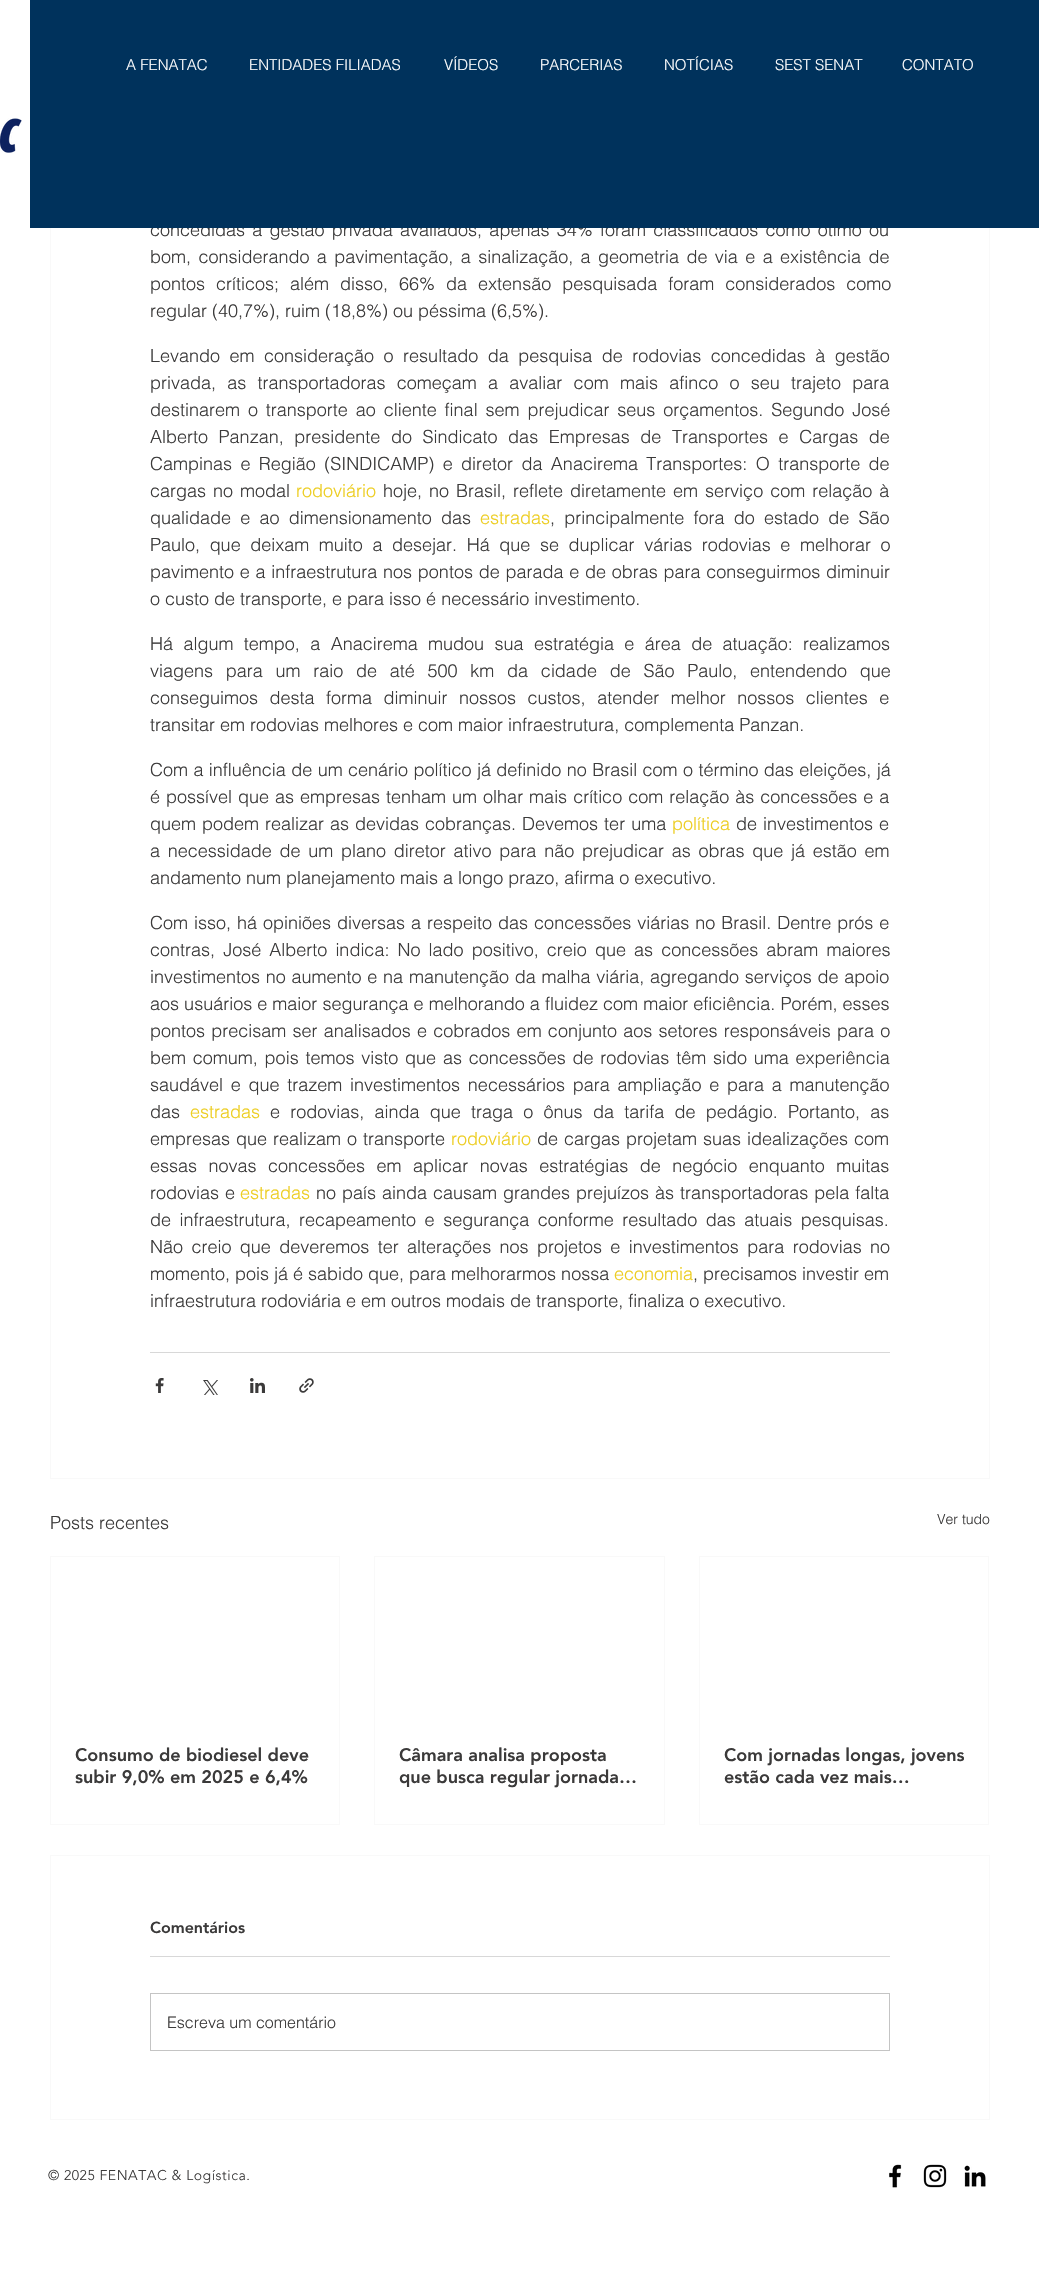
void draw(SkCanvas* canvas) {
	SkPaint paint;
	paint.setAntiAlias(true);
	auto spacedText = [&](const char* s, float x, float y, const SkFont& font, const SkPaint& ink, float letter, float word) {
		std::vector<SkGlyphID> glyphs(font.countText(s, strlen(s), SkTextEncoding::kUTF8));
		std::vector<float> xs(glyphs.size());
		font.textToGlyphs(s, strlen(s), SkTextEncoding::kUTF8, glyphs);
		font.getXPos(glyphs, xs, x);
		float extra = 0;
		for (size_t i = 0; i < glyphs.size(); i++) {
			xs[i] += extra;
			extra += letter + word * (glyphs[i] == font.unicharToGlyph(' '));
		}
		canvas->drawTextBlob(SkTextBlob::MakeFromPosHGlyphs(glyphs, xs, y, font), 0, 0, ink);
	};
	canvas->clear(0xffffffff);
	paint.setStroke(true);
	paint.setStrokeWidth(1);
	paint.setColor(0xfff9f9f9);
	canvas->drawRect(SkRect::MakeXYWH(50.5, -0.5, 939, 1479), paint);
	SkFont f1(fontMgr->matchFamilyStyle("helvetica", SkFontStyle(300, SkFontStyle::kNormal_Width, SkFontStyle::kUpright_Slant)), 18);
	f1.setSubpixel(true);
	paint.setStroke(false);
	paint.setColor(0xff3b3a3a);
	spacedText("concedidas à gestão privada avaliados, apenas 34% foram classificados como ótimo ou", 150, 236, f1, paint, 0, 2.25);
	paint.setColor(0xff00325c);
	canvas->drawRect(SkRect::MakeXYWH(30, 0, 1009, 228), paint);
	SkFont f2(fontMgr->matchFamilyStyle("helvetica", SkFontStyle(300, SkFontStyle::kNormal_Width, SkFontStyle::kUpright_Slant)), 15);
	f2.setSubpixel(true);
	paint.setColor(0xffffffff);
	canvas->drawString("A FENATAC", 126, 70, f2, paint);
	canvas->drawString("ENTIDADES FILIADAS", 249, 70, f2, paint);
	canvas->drawString("VÍDEOS", 444, 70, f2, paint);
	canvas->drawString("PARCERIAS", 540, 70, f2, paint);
	canvas->drawString("NOTÍCIAS", 664, 70, f2, paint);
	canvas->drawString("SEST SENAT", 775, 70, f2, paint);
	canvas->drawString("CONTATO", 902, 70, f2, paint);
	canvas->drawImageRect(SkImages::DeferredFromEncodedData(SkData::MakeFromFileName("img1.png")), SkRect::MakeXYWH(0, 118, 22, 35), SkSamplingOptions());
	paint.setColor(0xff3b3a3a);
	spacedText("bom, considerando a pavimentação, a sinalização, a geometria de via e a existência de", 150, 263, f1, paint, 0, 2.4);
	spacedText("pontos críticos; além disso, 66% da extensão pesquisada foram considerados como", 150, 290, f1, paint, 0, 6);
	canvas->drawString("regular (40,7%), ruim (18,8%) ou péssima (6,5%).", 150, 317, f1, paint);
	spacedText("Levando em consideração o resultado da pesquisa de rodovias concedidas à gestão", 150, 362, f1, paint, 0, 4.5);
	spacedText("privada, as transportadoras começam a avaliar com mais afinco o seu trajeto para", 150, 389, f1, paint, 0, 6.25);
	spacedText("destinarem o transporte ao cliente final sem prejudicar seus orçamentos. Segundo José", 150, 416, f1, paint, 0, 2.9);
	spacedText("Alberto Panzan, presidente do Sindicato das Empresas de Transportes e Cargas de", 150, 443, f1, paint, 0, 5.6);
	spacedText("Campinas e Região (SINDICAMP) e diretor da Anacirema Transportes: O transporte de", 150, 470, f1, paint, 0, 3.4);
	spacedText("cargas no modal", 150, 497, f1, paint, 0, 2);
	paint.setColor(0xffedcd1f);
	canvas->drawString("rodoviário", 296, 497, f1, paint);
	paint.setColor(0xff3b3a3a);
	spacedText("hoje, no Brasil, reflete diretamente em serviço com relação à", 383, 497, f1, paint, 0, 2);
	spacedText("qualidade e ao dimensionamento das", 150, 524, f1, paint, 0, 4.25);
	paint.setColor(0xffedcd1f);
	canvas->drawString("estradas", 480, 524, f1, paint);
	paint.setColor(0xff3b3a3a);
	spacedText(", principalmente fora do estado de São", 550, 524, f1, paint, 0, 4.25);
	spacedText("Paulo, que deixam muito a desejar. Há que se duplicar várias rodovias e melhorar o", 150, 551, f1, paint, 0, 4.6);
	spacedText("pavimento e a infraestrutura nos pontos de parada e de obras para conseguirmos diminuir", 150, 578, f1, paint, 0, 0.75);
	canvas->drawString("o custo de transporte, e para isso é necessário investimento.", 150, 605, f1, paint);
	spacedText("Há algum tempo, a Anacirema mudou sua estratégia e área de atuação: realizamos", 150, 650, f1, paint, 0, 5.4);
	spacedText("viagens para um raio de até 500 km da cidade de São Paulo, entendendo que", 150, 677, f1, paint, 0, 7.75);
	spacedText("conseguimos desta forma diminuir nossos custos, atender melhor nossos clientes e", 150, 704, f1, paint, 0, 6.5);
	canvas->drawString("transitar em rodovias melhores e com maior infraestrutura, complementa Panzan.", 150, 731, f1, paint);
	spacedText("Com a influência de um cenário político já definido no Brasil com o término das eleições, já", 150, 776, f1, paint, 0, 0.4);
	spacedText("é possível que as empresas tenham um olhar mais crítico com relação às concessões e a", 150, 803, f1, paint, 0, 1);
	spacedText("quem podem realizar as devidas cobranças. Devemos ter uma", 150, 830, f1, paint, 0, 1);
	paint.setColor(0xffedcd1f);
	canvas->drawString("política", 672, 830, f1, paint);
	paint.setColor(0xff3b3a3a);
	spacedText("de investimentos e", 736, 830, f1, paint, 0, 1);
	spacedText("a necessidade de um plano diretor ativo para não prejudicar as obras que já estão em", 150, 857, f1, paint, 0, 2.75);
	canvas->drawString("andamento num planejamento mais a longo prazo, afirma o executivo.", 150, 884, f1, paint);
	spacedText("Com isso, há opiniões diversas a respeito das concessões viárias no Brasil. Dentre prós e", 150, 929, f1, paint, 0, 1);
	spacedText("contras, José Alberto indica: No lado positivo, creio que as concessões abram maiores", 150, 956, f1, paint, 0, 3.1);
	spacedText("investimentos no aumento e na manutenção da malha viária, agregando serviços de apoio", 150, 983, f1, paint, 0, 0.75);
	spacedText("aos usuários e maior segurança e melhorando a fluidez com maior eficiência. Porém, esses", 150, 1010, f1, paint, 0, 0.1);
	spacedText("pontos precisam ser analisados e cobrados em conjunto aos setores responsáveis para o", 150, 1037, f1, paint, 0, 1.25);
	spacedText("bem comum, pois temos visto que as concessões de rodovias têm sido uma experiência", 150, 1064, f1, paint, 0, 1.8);
	spacedText("saudável e que trazem investimentos necessários para ampliação e para a manutenção", 150, 1091, f1, paint, 0, 2.75);
	canvas->drawString("das", 150, 1118, f1, paint);
	paint.setColor(0xffedcd1f);
	canvas->drawString("estradas", 190, 1118, f1, paint);
	paint.setColor(0xff3b3a3a);
	spacedText("e rodovias, ainda que traga o ônus da tarifa de pedágio. Portanto, as", 270, 1118, f1, paint, 0, 5.25);
	spacedText("empresas que realizam o transporte", 150, 1145, f1, paint, 0, 1);
	paint.setColor(0xffedcd1f);
	canvas->drawString("rodoviário", 451, 1145, f1, paint);
	paint.setColor(0xff3b3a3a);
	spacedText("de cargas projetam suas idealizações com", 537, 1145, f1, paint, 0, 1);
	spacedText("essas novas concessões em aplicar novas estratégias de negócio enquanto muitas", 150, 1172, f1, paint, 0, 6.5);
	spacedText("rodovias e", 150, 1199, f1, paint, 0, 1);
	paint.setColor(0xffedcd1f);
	canvas->drawString("estradas", 240, 1199, f1, paint);
	paint.setColor(0xff3b3a3a);
	spacedText("no país ainda causam grandes prejuízos às transportadoras pela falta", 316, 1199, f1, paint, 0, 1);
	spacedText("de infraestrutura, recapeamento e segurança conforme resultado das atuais pesquisas.", 150, 1226, f1, paint, 0, 3.5);
	spacedText("Não creio que deveremos ter alterações nos projetos e investimentos para rodovias no", 150, 1253, f1, paint, 0, 3.4);
	canvas->drawString("momento, pois já é sabido que, para melhorarmos nossa", 150, 1280, f1, paint);
	paint.setColor(0xffedcd1f);
	canvas->drawString("economia", 614, 1280, f1, paint);
	paint.setColor(0xff3b3a3a);
	canvas->drawString(", precisamos investir em", 693, 1280, f1, paint);
	canvas->drawString("infraestrutura rodoviária e em outros modais de transporte, finaliza o executivo.", 150, 1307, f1, paint);
	paint.setColor(0xffd8d8d8);
	canvas->drawRect(SkRect::MakeXYWH(150, 1352, 740, 1), paint);
	canvas->drawImageRect(SkImages::DeferredFromEncodedData(SkData::MakeFromFileName("img2.png")), SkRect::MakeXYWH(155, 1378, 9, 15), SkSamplingOptions());
	canvas->drawImageRect(SkImages::DeferredFromEncodedData(SkData::MakeFromFileName("img3.png")), SkRect::MakeXYWH(203, 1380, 15, 15), SkSamplingOptions());
	canvas->drawImageRect(SkImages::DeferredFromEncodedData(SkData::MakeFromFileName("img4.png")), SkRect::MakeXYWH(250, 1378, 15, 15), SkSamplingOptions());
	canvas->drawImageRect(SkImages::DeferredFromEncodedData(SkData::MakeFromFileName("img5.png")), SkRect::MakeXYWH(299, 1378, 15, 15), SkSamplingOptions());
	paint.setColor(0xff3b3a3a);
	canvas->drawString("Posts recentes", 50, 1529, f1, paint);
	SkFont f3(fontMgr->matchFamilyStyle("helvetica", SkFontStyle(300, SkFontStyle::kNormal_Width, SkFontStyle::kUpright_Slant)), 14);
	f3.setSubpixel(true);
	canvas->drawString("Ver tudo", 937, 1524, f3, paint);
	paint.setStroke(true);
	paint.setColor(0xfff9f9f9);
	canvas->drawRect(SkRect::MakeXYWH(50.5, 1556.5, 289, 268), paint);
	SkFont f4(fontMgr->matchFamilyStyle("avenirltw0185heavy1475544", SkFontStyle(900, SkFontStyle::kNormal_Width, SkFontStyle::kUpright_Slant)), 18);
	f4.setSubpixel(true);
	paint.setStroke(false);
	paint.setColor(0xff3b3a3a);
	canvas->drawString("Consumo de biodiesel deve", 75, 1761, f4, paint);
	canvas->drawString("subir 9,0% em 2025 e 6,4%", 75, 1783, f4, paint);
	paint.setStroke(true);
	paint.setColor(0xfff9f9f9);
	canvas->drawRect(SkRect::MakeXYWH(374.5, 1556.5, 290, 268), paint);
	paint.setStroke(false);
	paint.setColor(0xff3b3a3a);
	canvas->drawString("Câmara analisa proposta", 399, 1761, f4, paint);
	canvas->drawString("que busca regular jornada…", 399, 1783, f4, paint);
	paint.setStroke(true);
	paint.setColor(0xfff9f9f9);
	canvas->drawRect(SkRect::MakeXYWH(699.5, 1556.5, 289, 268), paint);
	paint.setStroke(false);
	paint.setColor(0xff3b3a3a);
	canvas->drawString("Com jornadas longas, jovens", 724, 1761, f4, paint);
	canvas->drawString("estão cada vez mais…", 724, 1783, f4, paint);
	paint.setStroke(true);
	paint.setColor(0xfff9f9f9);
	canvas->drawRect(SkRect::MakeXYWH(50.5, 1855.5, 939, 264), paint);
	SkFont f5(fontMgr->matchFamilyStyle("avenirltw0185heavy1475544", SkFontStyle(900, SkFontStyle::kNormal_Width, SkFontStyle::kUpright_Slant)), 16);
	f5.setSubpixel(true);
	paint.setStroke(false);
	paint.setColor(0xff3b3a3a);
	canvas->drawString("Comentários", 150, 1933, f5, paint);
	paint.setColor(0xffd8d8d8);
	canvas->drawRect(SkRect::MakeXYWH(150, 1956, 740, 1), paint);
	paint.setStroke(true);
	paint.setColor(0xffc4c4c4);
	canvas->drawRect(SkRect::MakeXYWH(150.5, 1993.5, 739, 57), paint);
	SkFont f6(fontMgr->matchFamilyStyle("helvetica", SkFontStyle(300, SkFontStyle::kNormal_Width, SkFontStyle::kUpright_Slant)), 16);
	f6.setSubpixel(true);
	paint.setStroke(false);
	paint.setColor(0xff3b3a3a);
	canvas->drawString("Escreva um comentário", 167, 2028, f6, paint);
	SkFont f7(fontMgr->matchFamilyStyle("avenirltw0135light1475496", SkFontStyle(300, SkFontStyle::kNormal_Width, SkFontStyle::kUpright_Slant)), 14);
	f7.setSubpixel(true);
	spacedText("© 2025 FENATAC & Logística.", 48, 2180, f7, paint, 0.55, 0);
	canvas->drawImageRect(SkImages::DeferredFromEncodedData(SkData::MakeFromFileName("img6.png")), SkRect::MakeXYWH(889, 2164, 13, 24), SkSamplingOptions());
	canvas->drawImageRect(SkImages::DeferredFromEncodedData(SkData::MakeFromFileName("img7.png")), SkRect::MakeXYWH(923, 2164, 24, 24), SkSamplingOptions());
	canvas->drawImageRect(SkImages::DeferredFromEncodedData(SkData::MakeFromFileName("img8.png")), SkRect::MakeXYWH(964, 2165, 22, 22), SkSamplingOptions());
}
